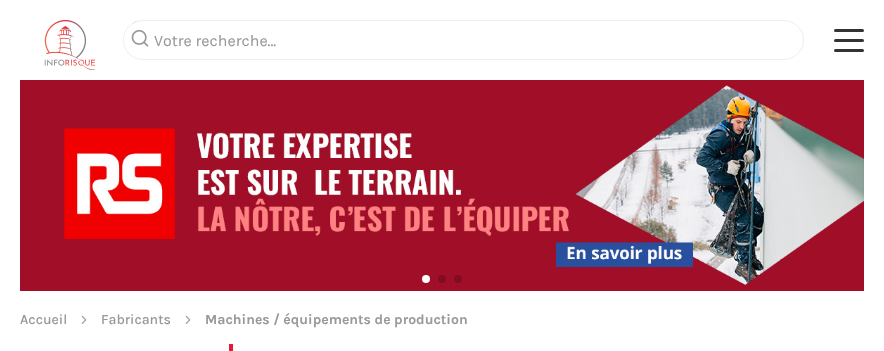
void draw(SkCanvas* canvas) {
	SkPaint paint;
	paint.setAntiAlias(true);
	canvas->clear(0xffffffff);
	canvas->drawImageRect(SkImages::DeferredFromEncodedData(SkData::MakeFromFileName("img1.png")), SkRect::MakeXYWH(44, 20, 52, 50), SkSamplingOptions());
	canvas->drawImageRect(SkImages::DeferredFromEncodedData(SkData::MakeFromFileName("img2.png")), SkRect::MakeXYWH(131, 21, 9, 5), SkSamplingOptions());
	paint.setColor(0xffffffff);
	canvas->drawRoundRect(SkRect::MakeXYWH(123.5, 20.5, 680, 39), 19.5, 19.5, paint);
	paint.setStroke(true);
	paint.setStrokeWidth(1);
	paint.setColor(0xffeeeeee);
	canvas->drawRoundRect(SkRect::MakeXYWH(123.5, 20.5, 680, 39), 19.5, 19.5, paint);
	canvas->drawImageRect(SkImages::DeferredFromEncodedData(SkData::MakeFromFileName("img3.png")), SkRect::MakeXYWH(131, 29, 18, 18), SkSamplingOptions());
	SkFont f1(fontMgr->matchFamilyStyle("Karla", SkFontStyle::Normal()), 16);
	f1.setSubpixel(true);
	paint.setStroke(false);
	paint.setColor(0xff999999);
	canvas->drawString("Votre recherche...", 154, 46, f1, paint);
	paint.setColor(0xff333333);
	canvas->drawRoundRect(SkRect::MakeXYWH(834, 29, 30, 3), 1.5, 1.5, paint);
	canvas->drawRoundRect(SkRect::MakeXYWH(834, 39, 30, 3), 1.5, 1.5, paint);
	canvas->drawRoundRect(SkRect::MakeXYWH(834, 49, 30, 3), 1.5, 1.5, paint);
	canvas->drawImageRect(SkImages::DeferredFromEncodedData(SkData::MakeFromFileName("img4.png")), SkRect::MakeXYWH(20, 80, 844, 211), SkSamplingOptions());
	paint.setColor(0xffffffff);
	canvas->drawCircle(426, 279, 4, paint);
	paint.setColor(0xff810b20);
	canvas->drawCircle(442, 279, 4, paint);
	canvas->drawCircle(458, 279, 4, paint);
	SkFont f2(fontMgr->matchFamilyStyle("Karla", SkFontStyle(500, SkFontStyle::kNormal_Width, SkFontStyle::kUpright_Slant)), 14);
	f2.setSubpixel(true);
	paint.setColor(0xff999999);
	canvas->drawString("Accueil", 20, 324, f2, paint);
	canvas->drawImageRect(SkImages::DeferredFromEncodedData(SkData::MakeFromFileName("img5.png")), SkRect::MakeXYWH(81, 315, 6, 9), SkSamplingOptions());
	canvas->drawString("Fabricants", 101, 324, f2, paint);
	canvas->drawImageRect(SkImages::DeferredFromEncodedData(SkData::MakeFromFileName("img5.png")), SkRect::MakeXYWH(185, 315, 6, 9), SkSamplingOptions());
	SkFont f3(fontMgr->matchFamilyStyle("Karla", SkFontStyle::Bold()), 14);
	f3.setSubpixel(true);
	canvas->drawString("Machines / équipements de production", 205, 324, f3, paint);
	paint.setColor(0xffea1836);
	canvas->drawRect(SkRect::MakeXYWH(229, 344, 4, 7), paint);
}
